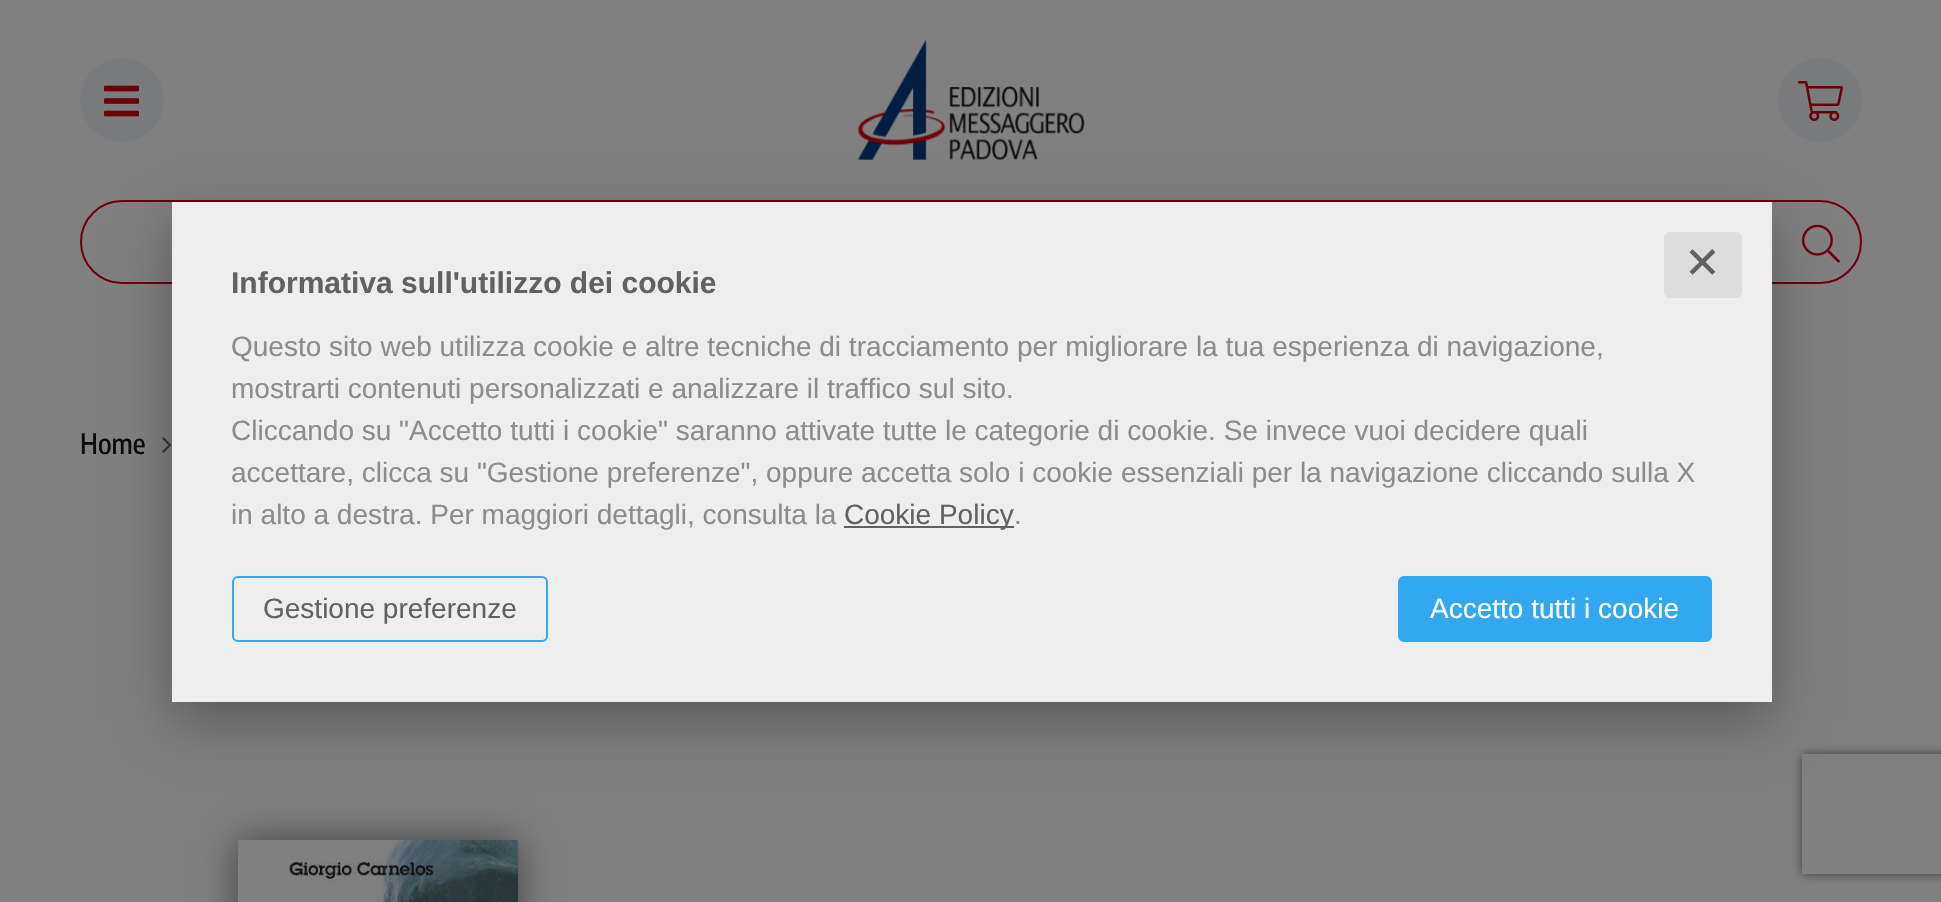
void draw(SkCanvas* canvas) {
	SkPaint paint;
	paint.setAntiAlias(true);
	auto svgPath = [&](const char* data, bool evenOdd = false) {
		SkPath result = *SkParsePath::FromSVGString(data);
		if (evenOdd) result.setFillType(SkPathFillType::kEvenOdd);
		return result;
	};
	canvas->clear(0xff808080);
	paint.setColor(0xff797b7c);
	canvas->drawCircle(122, 100, 42, paint);
	canvas->drawImageRect(SkImages::DeferredFromEncodedData(SkData::MakeFromFileName("img1.png")), SkRect::MakeXYWH(104, 85, 35, 32), SkSamplingOptions());
	canvas->drawImageRect(SkImages::DeferredFromEncodedData(SkData::MakeFromFileName("img2.png")), SkRect::MakeXYWH(857, 40, 228, 120), SkSamplingOptions());
	canvas->drawCircle(1820, 100, 42, paint);
	canvas->drawImageRect(SkImages::DeferredFromEncodedData(SkData::MakeFromFileName("img3.png")), SkRect::MakeXYWH(1798, 81, 45, 40), SkSamplingOptions());
	paint.setStroke(true);
	paint.setStrokeWidth(2);
	paint.setColor(0xff6c0009);
	canvas->drawRoundRect(SkRect::MakeXYWH(81, 201, 1780, 82), 41, 41, paint);
	canvas->drawImageRect(SkImages::DeferredFromEncodedData(SkData::MakeFromFileName("img4.png")), SkRect::MakeXYWH(1802, 224, 38, 39), SkSamplingOptions());
	SkFont f1(fontMgr->matchFamilyStyle("Encode Sans Condensed", SkFontStyle(500, SkFontStyle::kNormal_Width, SkFontStyle::kUpright_Slant)), 28);
	f1.setSubpixel(true);
	paint.setStroke(false);
	paint.setColor(0xff0a090b);
	canvas->drawString("Home", 80, 454, f1, paint);
	canvas->drawImageRect(SkImages::DeferredFromEncodedData(SkData::MakeFromFileName("img5.png")), SkRect::MakeXYWH(162, 437, 10, 16), SkSamplingOptions());
	canvas->save();
	canvas->clipPath(svgPath("M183 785H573V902H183ZM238 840H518V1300H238Z", true), true);
	paint.setColor(0x80000000);
	paint.setMaskFilter(SkMaskFilter::MakeBlur(kNormal_SkBlurStyle, 18));
	canvas->drawRect(SkRect::MakeXYWH(238, 840, 280, 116), paint);
	paint.setMaskFilter(nullptr);
	canvas->restore();
	canvas->drawImageRect(SkImages::DeferredFromEncodedData(SkData::MakeFromFileName("img6.png")), SkRect::MakeXYWH(289, 840, 229, 62), SkSamplingOptions());
	paint.setColor(0x4d000000);
	paint.setMaskFilter(SkMaskFilter::MakeBlur(kNormal_SkBlurStyle, 25));
	canvas->drawRect(SkRect::MakeXYWH(172, 222, 1600, 500), paint);
	paint.setMaskFilter(nullptr);
	paint.setColor(0xffeeeeee);
	canvas->drawRect(SkRect::MakeXYWH(172, 202, 1600, 500), paint);
	paint.setColor(0xffdddddd);
	canvas->drawRoundRect(SkRect::MakeXYWH(1664, 232, 78, 66), 6, 6, paint);
	SkFont f2(fontMgr->matchFamilyStyle("DejaVu Sans", SkFontStyle::Normal()), 44);
	f2.setSubpixel(true);
	paint.setColor(0xff626060);
	canvas->drawString("✕", 1684, 278, f2, paint);
	SkFont f3(fontMgr->matchFamilyStyle("Liberation Sans", SkFontStyle::Bold()), 30);
	f3.setSubpixel(true);
	canvas->drawString("Informativa sull'utilizzo dei cookie", 231, 293, f3, paint);
	SkFont f4(fontMgr->matchFamilyStyle("Liberation Sans", SkFontStyle::Normal()), 28);
	f4.setSubpixel(true);
	paint.setColor(0xff8d8b8b);
	canvas->drawString("Questo sito web utilizza cookie e altre tecniche di tracciamento per migliorare la tua esperienza di navigazione,", 231, 356, f4, paint);
	canvas->drawString("mostrarti contenuti personalizzati e analizzare il traffico sul sito.", 231, 398, f4, paint);
	canvas->drawString("Cliccando su \"Accetto tutti i cookie\" saranno attivate tutte le categorie di cookie. Se invece vuoi decidere quali", 231, 440, f4, paint);
	canvas->drawString("accettare, clicca su \"Gestione preferenze\", oppure accetta solo i cookie essenziali per la navigazione cliccando sulla X", 231, 482, f4, paint);
	canvas->drawString("in alto a destra. Per maggiori dettagli, consulta la", 231, 524, f4, paint);
	paint.setColor(0xff626060);
	canvas->drawRect(SkRect::MakeXYWH(844, 526, 170, 2), paint);
	canvas->drawString("Cookie Policy", 844, 524, f4, paint);
	paint.setColor(0xff8d8b8b);
	canvas->drawString(".", 1014, 524, f4, paint);
	paint.setStroke(true);
	paint.setColor(0xff31a8f0);
	canvas->drawRoundRect(SkRect::MakeXYWH(233, 577, 314, 64), 5, 5, paint);
	paint.setStroke(false);
	paint.setColor(0xff626060);
	canvas->drawString("Gestione preferenze", 263, 618, f4, paint);
	paint.setColor(0xff31a8f0);
	canvas->drawRoundRect(SkRect::MakeXYWH(1399, 577, 312, 64), 5, 5, paint);
	paint.setStroke(true);
	canvas->drawRoundRect(SkRect::MakeXYWH(1399, 577, 312, 64), 5, 5, paint);
	paint.setStroke(false);
	paint.setColor(0xffffffff);
	canvas->drawString("Accetto tutti i cookie", 1430, 618, f4, paint);
	canvas->save();
	canvas->clipPath(svgPath("M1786 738H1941V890H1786ZM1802 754H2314V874H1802Z", true), true);
	paint.setColor(0xff404040);
	paint.setMaskFilter(SkMaskFilter::MakeBlur(kNormal_SkBlurStyle, 5));
	canvas->drawRect(SkRect::MakeXYWH(1802, 754, 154, 120), paint);
	paint.setMaskFilter(nullptr);
	canvas->restore();
}
